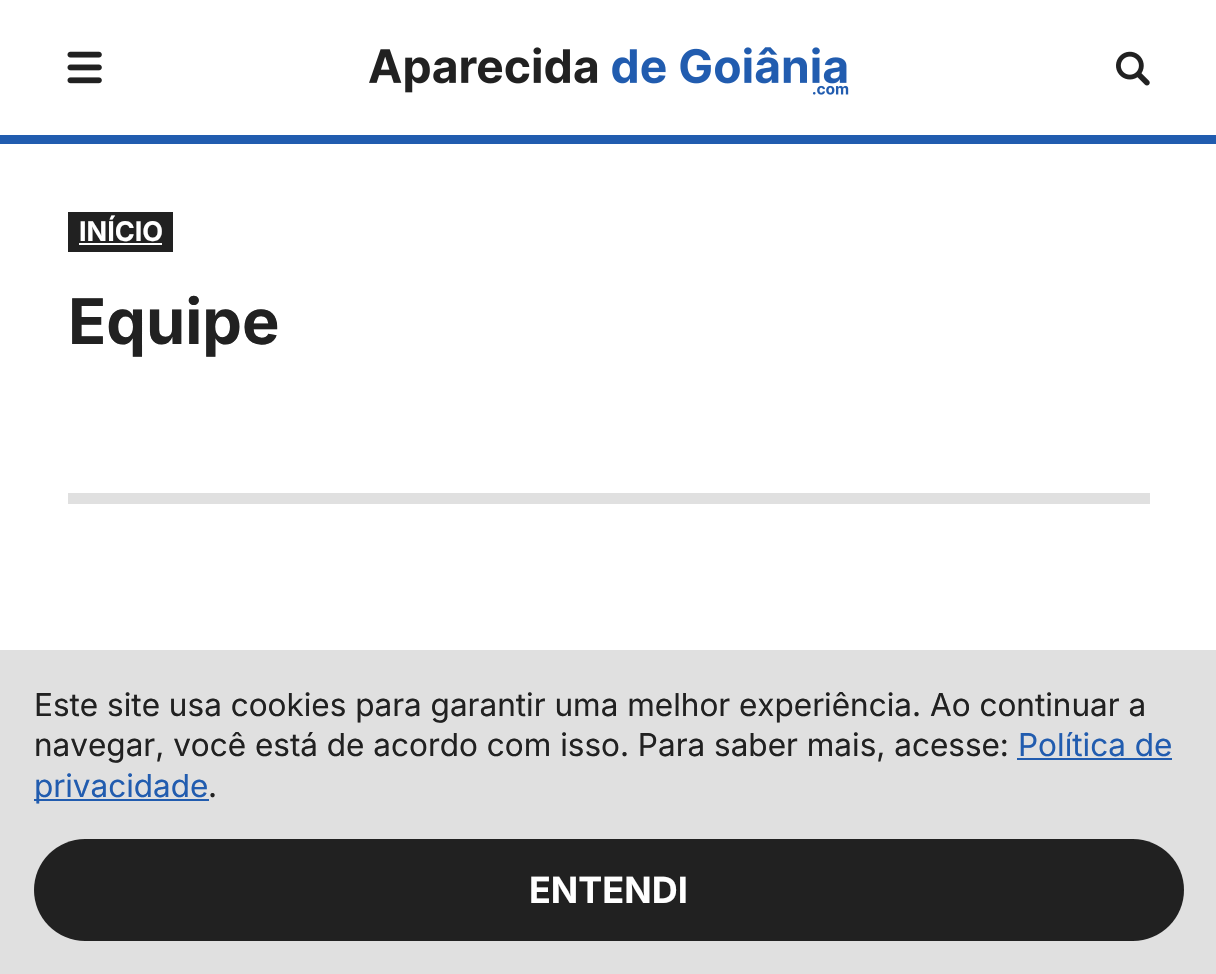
void draw(SkCanvas* canvas) {
	SkPaint paint;
	paint.setAntiAlias(true);
	canvas->clear(0xffffffff);
	paint.setColor(0xff215caf);
	canvas->drawRect(SkRect::MakeXYWH(0, 135, 1216, 9), paint);
	canvas->drawImageRect(SkImages::DeferredFromEncodedData(SkData::MakeFromFileName("img1.png")), SkRect::MakeXYWH(67, 51, 35, 33), SkSamplingOptions());
	canvas->drawImageRect(SkImages::DeferredFromEncodedData(SkData::MakeFromFileName("img2.png")), SkRect::MakeXYWH(369, 47, 480, 48), SkSamplingOptions());
	canvas->drawImageRect(SkImages::DeferredFromEncodedData(SkData::MakeFromFileName("img3.png")), SkRect::MakeXYWH(1116, 51, 34, 35), SkSamplingOptions());
	paint.setColor(0xff212121);
	canvas->drawRect(SkRect::MakeXYWH(68, 212, 105, 40), paint);
	SkFont f1(fontMgr->matchFamilyStyle("Inter", SkFontStyle::Bold()), 27);
	f1.setSubpixel(true);
	paint.setColor(0xffffffff);
	canvas->drawString("INÍCIO", 79, 241, f1, paint);
	canvas->drawRect(SkRect::MakeXYWH(79, 243, 83, 2), paint);
	SkFont f2(fontMgr->matchFamilyStyle("Inter", SkFontStyle::Bold()), 63);
	f2.setSubpixel(true);
	paint.setColor(0xff212121);
	canvas->drawString("Equipe", 68, 344, f2, paint);
	paint.setColor(0xffe0e0e0);
	canvas->drawRect(SkRect::MakeXYWH(68, 493, 1082, 11), paint);
	canvas->drawRect(SkRect::MakeXYWH(0, 650, 1216, 324), paint);
	SkFont f3(fontMgr->matchFamilyStyle("Inter", SkFontStyle::Normal()), 31.5);
	f3.setSubpixel(true);
	paint.setColor(0xff212121);
	canvas->drawString("Este site usa cookies para garantir uma melhor experiência. Ao continuar a", 34, 716, f3, paint);
	canvas->drawString("navegar, você está de acordo com isso. Para saber mais, acesse:", 34, 756, f3, paint);
	paint.setColor(0xff215caf);
	canvas->drawString("Política de", 1018, 756, f3, paint);
	canvas->drawRect(SkRect::MakeXYWH(1017, 758, 155, 2), paint);
	canvas->drawRect(SkRect::MakeXYWH(34, 799, 175, 2), paint);
	canvas->drawString("privacidade", 34, 797, f3, paint);
	paint.setColor(0xff212121);
	canvas->drawString(".", 208, 797, f3, paint);
	canvas->drawRoundRect(SkRect::MakeXYWH(34, 839, 1150, 102), 51, 51, paint);
	SkFont f4(fontMgr->matchFamilyStyle("Inter", SkFontStyle::Bold()), 36);
	f4.setSubpixel(true);
	paint.setColor(0xffffffff);
	canvas->drawString("ENTENDI", 529, 903, f4, paint);
}
